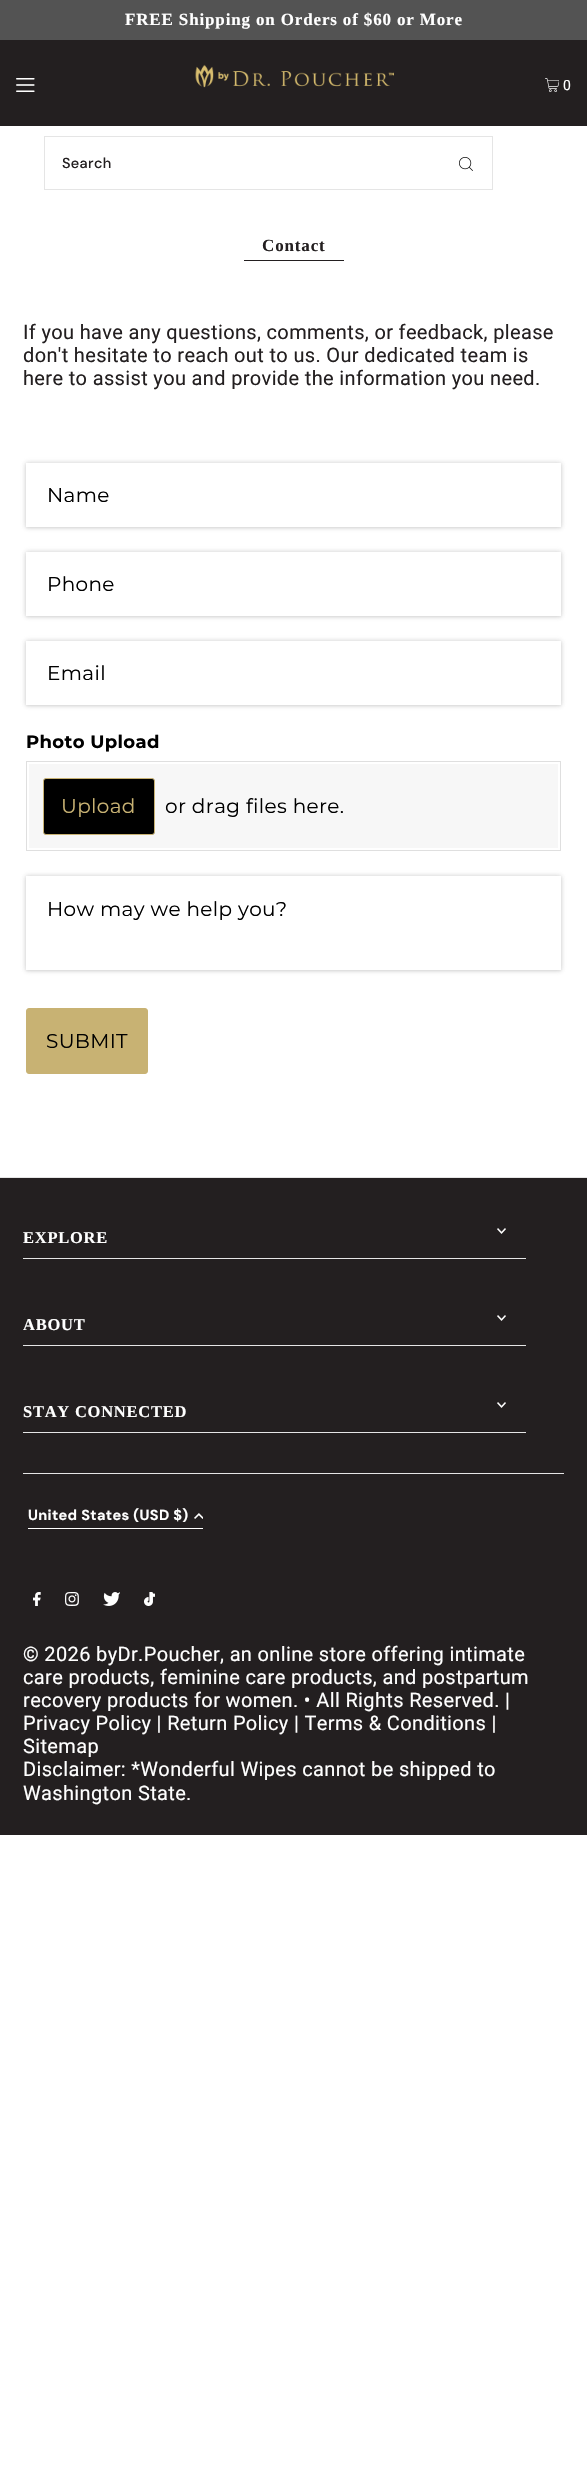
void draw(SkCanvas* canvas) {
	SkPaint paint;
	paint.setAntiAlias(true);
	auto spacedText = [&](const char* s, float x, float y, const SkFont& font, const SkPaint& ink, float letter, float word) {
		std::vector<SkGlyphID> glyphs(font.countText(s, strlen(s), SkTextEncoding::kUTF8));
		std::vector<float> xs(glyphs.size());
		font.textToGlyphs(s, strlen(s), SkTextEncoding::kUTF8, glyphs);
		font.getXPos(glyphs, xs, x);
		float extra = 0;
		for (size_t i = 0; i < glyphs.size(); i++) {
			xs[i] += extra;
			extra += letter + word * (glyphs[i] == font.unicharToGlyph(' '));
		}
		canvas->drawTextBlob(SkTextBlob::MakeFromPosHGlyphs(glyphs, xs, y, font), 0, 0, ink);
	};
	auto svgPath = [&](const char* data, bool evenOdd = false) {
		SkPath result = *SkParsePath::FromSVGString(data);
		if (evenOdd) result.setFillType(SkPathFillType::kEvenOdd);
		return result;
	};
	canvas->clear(0xffffffff);
	paint.setColor(0xff535353);
	canvas->drawRect(SkRect::MakeXYWH(0, 0, 587, 40), paint);
	SkFont f1(fontMgr->matchFamilyStyle("Liberation Serif", SkFontStyle::Bold()), 17);
	f1.setSubpixel(true);
	paint.setColor(0xffffffff);
	spacedText("FREE Shipping on Orders of $60 or More", 125, 25, f1, paint, 0.85, 0);
	paint.setColor(0xff231f20);
	canvas->drawRect(SkRect::MakeXYWH(0, 40, 587, 86), paint);
	canvas->drawImageRect(SkImages::DeferredFromEncodedData(SkData::MakeFromFileName("img1.png")), SkRect::MakeXYWH(16, 78, 19, 14), SkSamplingOptions());
	canvas->drawImageRect(SkImages::DeferredFromEncodedData(SkData::MakeFromFileName("img2.png")), SkRect::MakeXYWH(195, 64, 199, 24), SkSamplingOptions());
	canvas->drawImageRect(SkImages::DeferredFromEncodedData(SkData::MakeFromFileName("img3.png")), SkRect::MakeXYWH(545, 78, 14, 14), SkSamplingOptions());
	SkFont f2(fontMgr->matchFamilyStyle("Roboto", SkFontStyle::Normal()), 14);
	f2.setSubpixel(true);
	paint.setColor(0xffffffff);
	spacedText("0", 563, 90, f2, paint, 0.35, 0);
	paint.setStroke(true);
	paint.setStrokeWidth(1);
	paint.setColor(0xffe5e5e5);
	canvas->drawRect(SkRect::MakeXYWH(44.5, 136.5, 448, 53), paint);
	SkFont f3(fontMgr->matchFamilyStyle("DM Sans", SkFontStyle(500, SkFontStyle::kNormal_Width, SkFontStyle::kUpright_Slant)), 14.5);
	f3.setSubpixel(true);
	paint.setStroke(false);
	paint.setColor(0xff231f20);
	spacedText("Search", 62, 168, f3, paint, 0.35, 0);
	canvas->drawImageRect(SkImages::DeferredFromEncodedData(SkData::MakeFromFileName("img4.png")), SkRect::MakeXYWH(459, 157, 14, 14), SkSamplingOptions());
	spacedText("Contact", 262, 251, f1, paint, 0.85, 0);
	canvas->drawRect(SkRect::MakeXYWH(244, 260, 100, 1), paint);
	SkFont f4(fontMgr->matchFamilyStyle("Roboto", SkFontStyle::Normal()), 20);
	f4.setSubpixel(true);
	spacedText("If you have any questions, comments, or feedback, please", 23, 339, f4, paint, 0.35, 0);
	spacedText("don't hesitate to reach out to us. Our dedicated team is", 23, 362, f4, paint, 0.35, 0);
	spacedText("here to assist you and provide the information you need.", 23, 385, f4, paint, 0.35, 0);
	canvas->save();
	canvas->clipPath(svgPath("M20 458H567V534H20ZM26 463H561V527H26Z", true), true);
	paint.setColor(0x1a000000);
	paint.setMaskFilter(SkMaskFilter::MakeBlur(kNormal_SkBlurStyle, 1.5));
	canvas->drawRect(SkRect::MakeXYWH(26, 464, 535, 64), paint);
	paint.setMaskFilter(nullptr);
	canvas->restore();
	canvas->save();
	canvas->clipPath(svgPath("M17 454H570V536H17ZM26 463H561V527H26Z", true), true);
	paint.setColor(0xb3bfbfbf);
	paint.setMaskFilter(SkMaskFilter::MakeBlur(kNormal_SkBlurStyle, 2.5));
	canvas->drawRect(SkRect::MakeXYWH(26, 463, 535, 64), paint);
	paint.setMaskFilter(nullptr);
	canvas->restore();
	SkFont f5(fontMgr->matchFamilyStyle("Montserrat", SkFontStyle::Normal()), 20);
	f5.setSubpixel(true);
	paint.setColor(0xff000000);
	spacedText("Name", 47, 502, f5, paint, 0.35, 0);
	canvas->save();
	canvas->clipPath(svgPath("M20 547H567V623H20ZM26 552H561V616H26Z", true), true);
	paint.setColor(0x1a000000);
	paint.setMaskFilter(SkMaskFilter::MakeBlur(kNormal_SkBlurStyle, 1.5));
	canvas->drawRect(SkRect::MakeXYWH(26, 553, 535, 64), paint);
	paint.setMaskFilter(nullptr);
	canvas->restore();
	canvas->save();
	canvas->clipPath(svgPath("M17 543H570V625H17ZM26 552H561V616H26Z", true), true);
	paint.setColor(0xb3bfbfbf);
	paint.setMaskFilter(SkMaskFilter::MakeBlur(kNormal_SkBlurStyle, 2.5));
	canvas->drawRect(SkRect::MakeXYWH(26, 552, 535, 64), paint);
	paint.setMaskFilter(nullptr);
	canvas->restore();
	paint.setColor(0xff000000);
	spacedText("Phone", 47, 591, f5, paint, 0.35, 0);
	canvas->save();
	canvas->clipPath(svgPath("M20 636H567V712H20ZM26 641H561V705H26Z", true), true);
	paint.setColor(0x1a000000);
	paint.setMaskFilter(SkMaskFilter::MakeBlur(kNormal_SkBlurStyle, 1.5));
	canvas->drawRect(SkRect::MakeXYWH(26, 642, 535, 64), paint);
	paint.setMaskFilter(nullptr);
	canvas->restore();
	canvas->save();
	canvas->clipPath(svgPath("M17 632H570V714H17ZM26 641H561V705H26Z", true), true);
	paint.setColor(0xb3bfbfbf);
	paint.setMaskFilter(SkMaskFilter::MakeBlur(kNormal_SkBlurStyle, 2.5));
	canvas->drawRect(SkRect::MakeXYWH(26, 641, 535, 64), paint);
	paint.setMaskFilter(nullptr);
	canvas->restore();
	paint.setColor(0xff000000);
	spacedText("Email", 47, 680, f5, paint, 0.35, 0);
	SkFont f6(fontMgr->matchFamilyStyle("Montserrat", SkFontStyle::Bold()), 18);
	f6.setSubpixel(true);
	spacedText("Photo Upload", 26, 748, f6, paint, 0.35, 0);
	paint.setStroke(true);
	paint.setColor(0xffdfdfdf);
	canvas->drawRect(SkRect::MakeXYWH(26.5, 761.5, 534, 89), paint);
	paint.setStroke(false);
	paint.setColor(0xfff7f7f7);
	canvas->drawRect(SkRect::MakeXYWH(29, 764, 529, 84), paint);
	paint.setColor(0xff000000);
	canvas->drawRoundRect(SkRect::MakeXYWH(43.5, 778.5, 111, 56), 2.5, 2.5, paint);
	paint.setStroke(true);
	paint.setColor(0xffc8b273);
	canvas->drawRoundRect(SkRect::MakeXYWH(43.5, 778.5, 111, 56), 2.5, 2.5, paint);
	paint.setStroke(false);
	spacedText("Upload", 61, 813, f5, paint, 0.35, 0);
	paint.setColor(0xff000000);
	spacedText("or drag files here.", 165, 813, f5, paint, 0.35, 0);
	canvas->save();
	canvas->clipPath(svgPath("M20 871H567V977H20ZM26 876H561V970H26Z", true), true);
	paint.setColor(0x1a000000);
	paint.setMaskFilter(SkMaskFilter::MakeBlur(kNormal_SkBlurStyle, 1.5));
	canvas->drawRect(SkRect::MakeXYWH(26, 877, 535, 94), paint);
	paint.setMaskFilter(nullptr);
	canvas->restore();
	canvas->save();
	canvas->clipPath(svgPath("M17 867H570V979H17ZM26 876H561V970H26Z", true), true);
	paint.setColor(0xb3bfbfbf);
	paint.setMaskFilter(SkMaskFilter::MakeBlur(kNormal_SkBlurStyle, 2.5));
	canvas->drawRect(SkRect::MakeXYWH(26, 876, 535, 94), paint);
	paint.setMaskFilter(nullptr);
	canvas->restore();
	paint.setColor(0xff000000);
	spacedText("How may we help you?", 47, 916, f5, paint, 0.35, 0);
	paint.setColor(0xffc8b273);
	canvas->drawRoundRect(SkRect::MakeXYWH(26.5, 1008.5, 121, 65), 2.5, 2.5, paint);
	paint.setStroke(true);
	canvas->drawRoundRect(SkRect::MakeXYWH(26.5, 1008.5, 121, 65), 2.5, 2.5, paint);
	paint.setStroke(false);
	paint.setColor(0xff000000);
	spacedText("SUBMIT", 46, 1048, f5, paint, 0.35, 0);
	paint.setColor(0xff231f20);
	canvas->drawRect(SkRect::MakeXYWH(0, 1178, 587, 657), paint);
	paint.setColor(0xffe5e5e5);
	canvas->drawRect(SkRect::MakeXYWH(0, 1177, 587, 1), paint);
	canvas->drawRect(SkRect::MakeXYWH(23, 1258, 503, 1), paint);
	canvas->drawImageRect(SkImages::DeferredFromEncodedData(SkData::MakeFromFileName("img5.png")), SkRect::MakeXYWH(497, 1228, 9, 6), SkSamplingOptions());
	SkFont f7(fontMgr->matchFamilyStyle("Liberation Serif", SkFontStyle::Bold()), 16.5);
	f7.setSubpixel(true);
	paint.setColor(0xffffffff);
	spacedText("EXPLORE", 23, 1243, f7, paint, 0.75, 0);
	paint.setColor(0xffe5e5e5);
	canvas->drawRect(SkRect::MakeXYWH(23, 1345, 503, 1), paint);
	canvas->drawImageRect(SkImages::DeferredFromEncodedData(SkData::MakeFromFileName("img5.png")), SkRect::MakeXYWH(497, 1315, 9, 6), SkSamplingOptions());
	paint.setColor(0xffffffff);
	spacedText("ABOUT", 23, 1330, f7, paint, 0.75, 0);
	paint.setColor(0xffe5e5e5);
	canvas->drawRect(SkRect::MakeXYWH(23, 1432, 503, 1), paint);
	canvas->drawImageRect(SkImages::DeferredFromEncodedData(SkData::MakeFromFileName("img5.png")), SkRect::MakeXYWH(497, 1402, 9, 6), SkSamplingOptions());
	paint.setColor(0xffffffff);
	spacedText("STAY CONNECTED", 23, 1417, f7, paint, 0.75, 0);
	paint.setColor(0xffe5e5e5);
	canvas->drawRect(SkRect::MakeXYWH(23, 1473, 541, 1), paint);
	paint.setColor(0xffffffff);
	canvas->drawRect(SkRect::MakeXYWH(28, 1528, 175, 1), paint);
	SkFont f8(fontMgr->matchFamilyStyle("DM Sans", SkFontStyle::Bold()), 14.5);
	f8.setSubpixel(true);
	spacedText("United States (USD $)", 28, 1520, f8, paint, 0.35, 0);
	canvas->drawImageRect(SkImages::DeferredFromEncodedData(SkData::MakeFromFileName("img6.png")), SkRect::MakeXYWH(194, 1513, 9, 6), SkSamplingOptions());
	canvas->drawImageRect(SkImages::DeferredFromEncodedData(SkData::MakeFromFileName("img7.png")), SkRect::MakeXYWH(33, 1592, 8, 14), SkSamplingOptions());
	canvas->drawImageRect(SkImages::DeferredFromEncodedData(SkData::MakeFromFileName("img8.png")), SkRect::MakeXYWH(65, 1592, 14, 14), SkSamplingOptions());
	canvas->drawImageRect(SkImages::DeferredFromEncodedData(SkData::MakeFromFileName("img9.png")), SkRect::MakeXYWH(103, 1592, 17, 14), SkSamplingOptions());
	canvas->drawImageRect(SkImages::DeferredFromEncodedData(SkData::MakeFromFileName("img10.png")), SkRect::MakeXYWH(144, 1592, 11, 14), SkSamplingOptions());
	spacedText("© 2026 byDr.Poucher, an online store offering intimate", 23, 1661, f4, paint, 0.35, 0);
	spacedText("care products, feminine care products, and postpartum", 23, 1684, f4, paint, 0.35, 0);
	spacedText("recovery products for women. • All Rights Reserved. |", 23, 1707, f4, paint, 0.35, 0);
	spacedText("Privacy Policy | Return Policy | Terms & Conditions |", 23, 1730, f4, paint, 0.35, 0);
	spacedText("Sitemap", 23, 1753, f4, paint, 0.35, 0);
	spacedText("Disclaimer: *Wonderful Wipes cannot be shipped to", 23, 1776, f4, paint, 0.35, 0);
	spacedText("Washington State.", 23, 1800, f4, paint, 0.35, 0);
}
